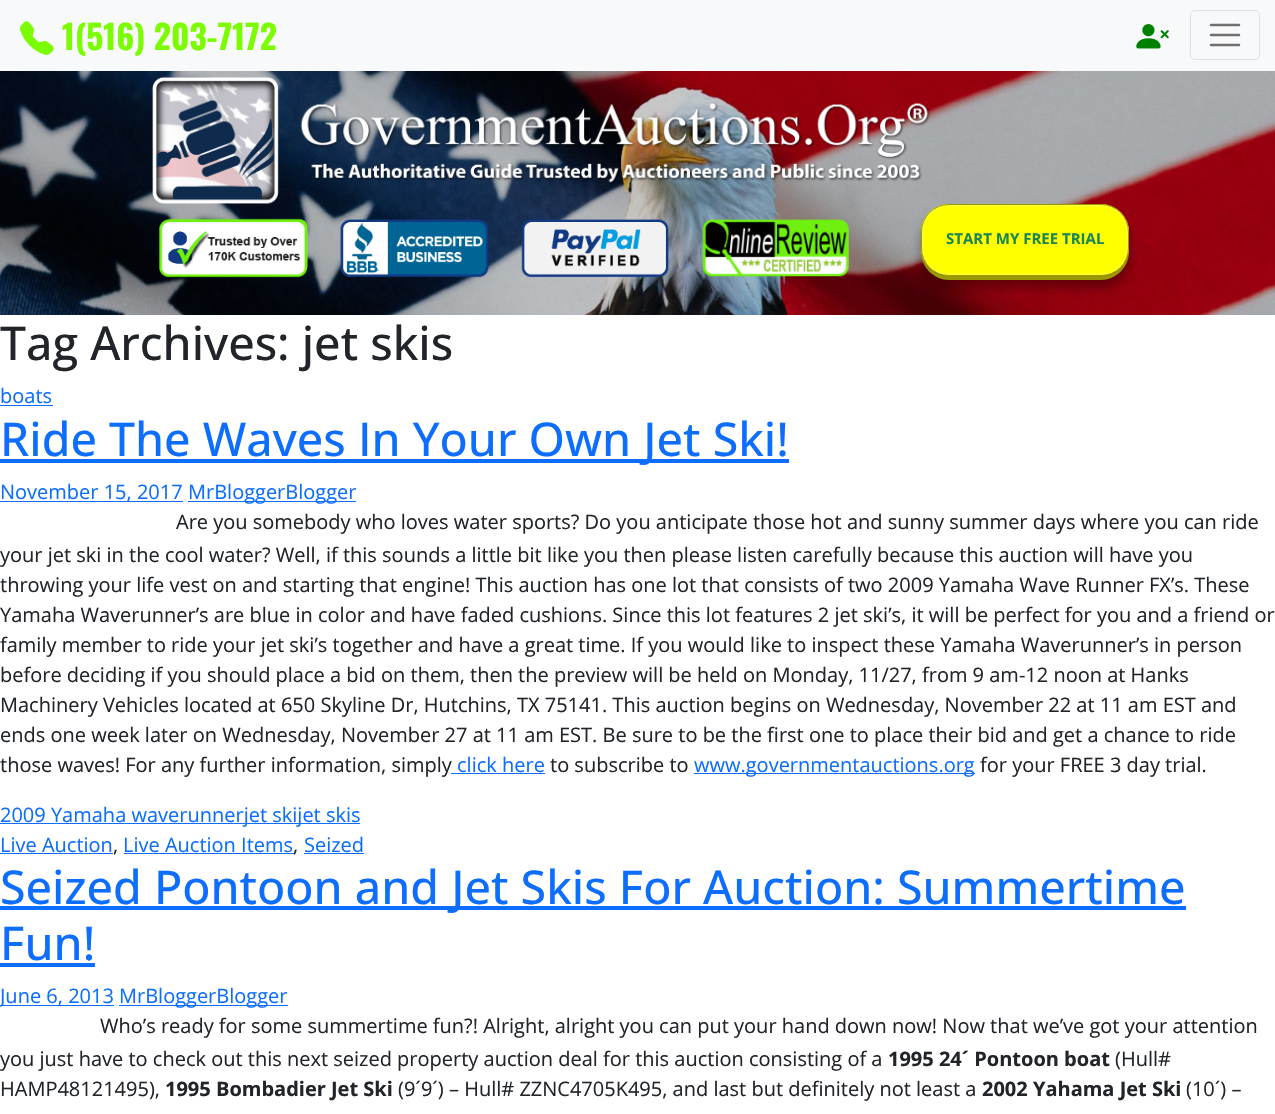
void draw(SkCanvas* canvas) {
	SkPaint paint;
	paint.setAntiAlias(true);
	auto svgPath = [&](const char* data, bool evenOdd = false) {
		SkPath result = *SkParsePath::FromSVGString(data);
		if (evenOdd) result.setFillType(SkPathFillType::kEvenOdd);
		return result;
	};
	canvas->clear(0xffffffff);
	paint.setColor(0xfff8f9fa);
	canvas->drawRect(SkRect::MakeXYWH(0, 0, 1275, 71), paint);
	canvas->drawImageRect(SkImages::DeferredFromEncodedData(SkData::MakeFromFileName("img1.png")), SkRect::MakeXYWH(20, 21, 34, 34), SkSamplingOptions());
	SkFont f1(fontMgr->matchFamilyStyle("Oswald", SkFontStyle::Bold()), 33.5);
	f1.setSubpixel(true);
	paint.setColor(0xff7cfc00);
	canvas->drawString("1(516) 203-7172", 62, 50, f1, paint);
	canvas->drawImageRect(SkImages::DeferredFromEncodedData(SkData::MakeFromFileName("img2.png")), SkRect::MakeXYWH(1136, 24, 33, 25), SkSamplingOptions());
	paint.setStroke(true);
	paint.setStrokeWidth(1);
	paint.setColor(0xffdfe0e1);
	canvas->drawRoundRect(SkRect::MakeXYWH(1190.5, 10.5, 69, 49), 4.5, 4.5, paint);
	paint.setStrokeWidth(2.5);
	paint.setStrokeCap(SkPaint::kRound_Cap);
	paint.setColor(0xff707071);
	canvas->drawPath(svgPath("M1211 25H1239M1211 35H1239M1211 45H1239"), paint);
	canvas->drawImageRect(SkImages::DeferredFromEncodedData(SkData::MakeFromFileName("img3.png")), SkRect::MakeXYWH(0, 71, 1275, 244), SkSamplingOptions());
	canvas->drawImageRect(SkImages::DeferredFromEncodedData(SkData::MakeFromFileName("img4.png")), SkRect::MakeXYWH(152, 76, 779, 128), SkSamplingOptions());
	canvas->drawImageRect(SkImages::DeferredFromEncodedData(SkData::MakeFromFileName("img5.png")), SkRect::MakeXYWH(159, 218, 149, 60), SkSamplingOptions());
	canvas->drawImageRect(SkImages::DeferredFromEncodedData(SkData::MakeFromFileName("img6.png")), SkRect::MakeXYWH(340, 219, 149, 59), SkSamplingOptions());
	canvas->drawImageRect(SkImages::DeferredFromEncodedData(SkData::MakeFromFileName("img7.png")), SkRect::MakeXYWH(521, 219, 148, 59), SkSamplingOptions());
	canvas->drawImageRect(SkImages::DeferredFromEncodedData(SkData::MakeFromFileName("img8.png")), SkRect::MakeXYWH(702, 219, 147, 58), SkSamplingOptions());
	paint.setStroke(false);
	paint.setColor(0x4d000000);
	paint.setMaskFilter(SkMaskFilter::MakeBlur(kNormal_SkBlurStyle, 5));
	canvas->drawRoundRect(SkRect::MakeXYWH(920, 213, 210, 75), 29, 29, paint);
	paint.setMaskFilter(nullptr);
	paint.setColor(0xff999903);
	canvas->drawPath(svgPath("M921 232V252C921 267 934 280 949 280H1101C1116 280 1129 267 1129 252V232V249C1129 264 1116 276 1101 276H949C934 276 921 264 921 249Z"), paint);
	paint.setColor(0xffffff00);
	canvas->drawRoundRect(SkRect::MakeXYWH(921, 204, 208, 72), 28, 28, paint);
	paint.setStroke(true);
	paint.setStrokeWidth(3);
	paint.setStrokeCap(SkPaint::kButt_Cap);
	paint.setColor(0x26ffffff);
	canvas->drawRoundRect(SkRect::MakeXYWH(922.5, 205.5, 205, 69), 26.5, 26.5, paint);
	paint.setStrokeWidth(1);
	paint.setColor(0xff999903);
	canvas->drawRoundRect(SkRect::MakeXYWH(921.5, 204.5, 207, 71), 27.5, 27.5, paint);
	SkFont f2(fontMgr->matchFamilyStyle("Open Sans", SkFontStyle::Bold()), 15);
	f2.setSubpixel(true);
	paint.setStroke(false);
	paint.setColor(0xff198754);
	canvas->drawString("START MY FREE TRIAL", 946, 244, f2, paint);
	SkFont f3(fontMgr->matchFamilyStyle("Open Sans", SkFontStyle(500, SkFontStyle::kNormal_Width, SkFontStyle::kUpright_Slant)), 46.6);
	f3.setSubpixel(true);
	paint.setColor(0xff212529);
	canvas->drawString("Tag Archives: jet skis", 0, 360, f3, paint);
	SkFont f4(fontMgr->matchFamilyStyle("Open Sans", SkFontStyle::Normal()), 20);
	f4.setSubpixel(true);
	paint.setColor(0xff0d6efd);
	canvas->drawString("boats", 0, 403, f4, paint);
	canvas->drawRect(SkRect::MakeXYWH(0, 405, 53, 1), paint);
	canvas->drawRect(SkRect::MakeXYWH(0, 459, 789, 4), paint);
	canvas->drawString("Ride The Waves In Your Own Jet Ski!", 0, 456, f3, paint);
	canvas->drawRect(SkRect::MakeXYWH(0, 501, 183, 1), paint);
	canvas->drawString("November 15, 2017", 0, 499, f4, paint);
	canvas->drawRect(SkRect::MakeXYWH(188, 501, 168, 1), paint);
	canvas->drawString("MrBloggerBlogger", 188, 499, f4, paint);
	paint.setColor(0xff212529);
	canvas->drawString("Are you somebody who loves water sports? Do you anticipate those hot and sunny summer days where you can ride", 176, 529, f4, paint);
	canvas->drawString("your jet ski in the cool water? Well, if this sounds a little bit like you then please listen carefully because this auction will have you", 0, 562, f4, paint);
	canvas->drawString("throwing your life vest on and starting that engine! This auction has one lot that consists of two 2009 Yamaha Wave Runner FX’s. These", 0, 592, f4, paint);
	canvas->drawString("Yamaha Waverunner’s are blue in color and have faded cushions. Since this lot features 2 jet ski’s, it will be perfect for you and a friend or", 0, 622, f4, paint);
	canvas->drawString("family member to ride your jet ski’s together and have a great time. If you would like to inspect these Yamaha Waverunner’s in person", 0, 652, f4, paint);
	canvas->drawString("before deciding if you should place a bid on them, then the preview will be held on Monday, 11/27, from 9 am-12 noon at Hanks", 0, 682, f4, paint);
	canvas->drawString("Machinery Vehicles located at 650 Skyline Dr, Hutchins, TX 75141. This auction begins on Wednesday, November 22 at 11 am EST and", 0, 712, f4, paint);
	canvas->drawString("ends one week later on Wednesday, November 27 at 11 am EST. Be sure to be the first one to place their bid and get a chance to ride", 0, 742, f4, paint);
	canvas->drawString("those waves! For any further information, simply", 0, 772, f4, paint);
	paint.setColor(0xff0d6efd);
	canvas->drawString("click here", 457, 772, f4, paint);
	canvas->drawRect(SkRect::MakeXYWH(451, 773, 94, 1), paint);
	paint.setColor(0xff212529);
	canvas->drawString("to subscribe to", 550, 772, f4, paint);
	paint.setColor(0xff0d6efd);
	canvas->drawRect(SkRect::MakeXYWH(694, 773, 281, 1), paint);
	canvas->drawString("www.governmentauctions.org", 694, 772, f4, paint);
	paint.setColor(0xff212529);
	canvas->drawString("for your FREE 3 day trial.", 980, 772, f4, paint);
	paint.setColor(0xff0d6efd);
	canvas->drawRect(SkRect::MakeXYWH(0, 823, 360, 1), paint);
	canvas->drawString("2009 Yamaha waverunnerjet skijet skis", 0, 822, f4, paint);
	canvas->drawString("Live Auction", 0, 852, f4, paint);
	paint.setColor(0xff212529);
	canvas->drawString(",", 113, 852, f4, paint);
	paint.setColor(0xff0d6efd);
	canvas->drawRect(SkRect::MakeXYWH(0, 853, 113, 1), paint);
	canvas->drawString("Live Auction Items", 123, 852, f4, paint);
	paint.setColor(0xff212529);
	canvas->drawString(",", 293, 852, f4, paint);
	paint.setColor(0xff0d6efd);
	canvas->drawRect(SkRect::MakeXYWH(124, 853, 170, 1), paint);
	canvas->drawRect(SkRect::MakeXYWH(304, 853, 60, 1), paint);
	canvas->drawString("Seized", 304, 852, f4, paint);
	canvas->drawRect(SkRect::MakeXYWH(0, 906, 1186, 4), paint);
	canvas->drawString("Seized Pontoon and Jet Skis For Auction: Summertime", 0, 904, f3, paint);
	canvas->drawString("Fun!", 0, 960, f3, paint);
	canvas->drawRect(SkRect::MakeXYWH(0, 963, 95, 4), paint);
	canvas->drawRect(SkRect::MakeXYWH(0, 1005, 114, 1), paint);
	canvas->drawString("June 6, 2013", 0, 1003, f4, paint);
	canvas->drawRect(SkRect::MakeXYWH(119, 1005, 169, 1), paint);
	canvas->drawString("MrBloggerBlogger", 119, 1003, f4, paint);
	paint.setColor(0xff212529);
	canvas->drawString("Who’s ready for some summertime fun?! Alright, alright you can put your hand down now! Now that we’ve got your attention", 100, 1033, f4, paint);
	canvas->drawString("you just have to check out this next seized property auction deal for this auction consisting of a", 0, 1066, f4, paint);
	SkFont f5(fontMgr->matchFamilyStyle("Open Sans", SkFontStyle::Bold()), 20);
	f5.setSubpixel(true);
	canvas->drawString("1995 24´ Pontoon boat", 888, 1066, f5, paint);
	canvas->drawString("(Hull#", 1115, 1066, f4, paint);
	canvas->drawString("HAMP48121495),", 0, 1096, f4, paint);
	canvas->drawString("1995 Bombadier Jet Ski", 165, 1096, f5, paint);
	canvas->drawString("(9´9´) – Hull# ZZNC4705K495, and last but definitely not least a", 398, 1096, f4, paint);
	canvas->drawString("2002 Yahama Jet Ski", 982, 1096, f5, paint);
	canvas->drawString("(10´) –", 1186, 1096, f4, paint);
}
